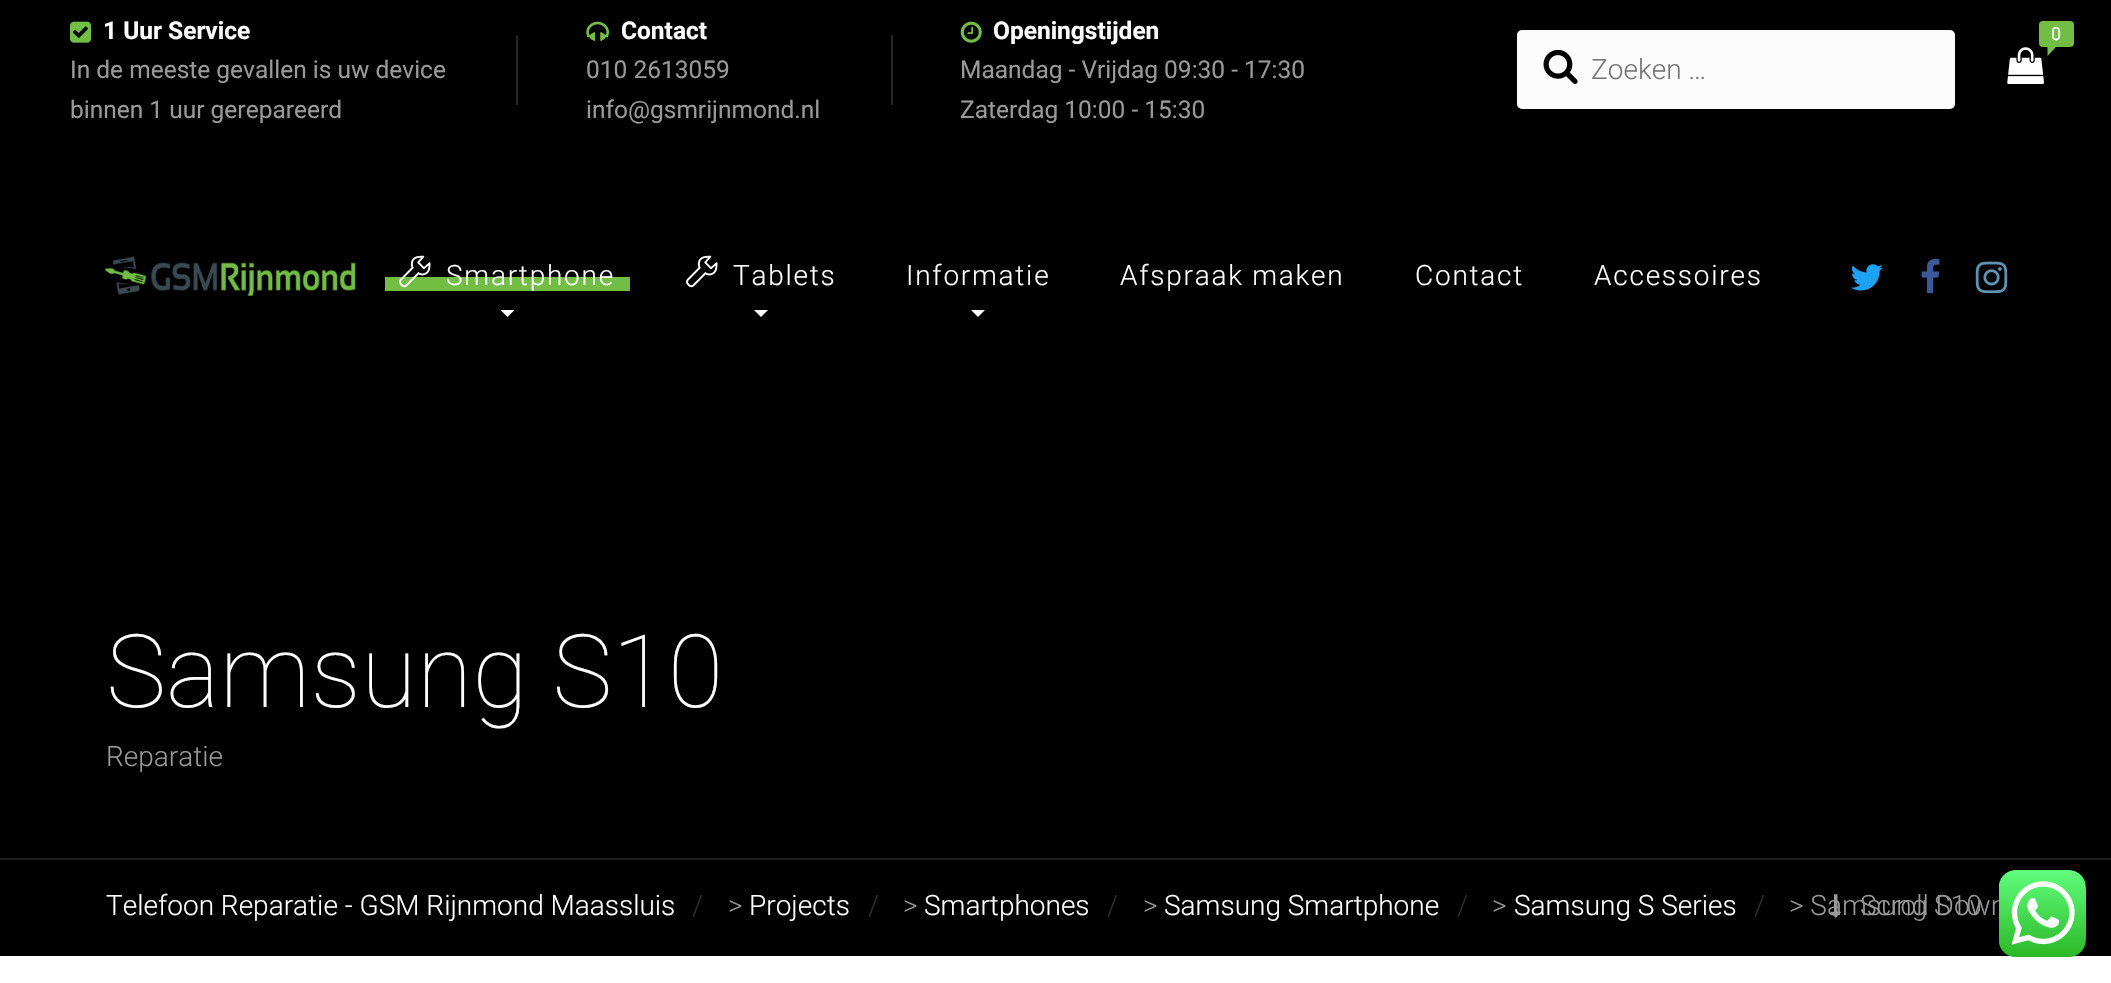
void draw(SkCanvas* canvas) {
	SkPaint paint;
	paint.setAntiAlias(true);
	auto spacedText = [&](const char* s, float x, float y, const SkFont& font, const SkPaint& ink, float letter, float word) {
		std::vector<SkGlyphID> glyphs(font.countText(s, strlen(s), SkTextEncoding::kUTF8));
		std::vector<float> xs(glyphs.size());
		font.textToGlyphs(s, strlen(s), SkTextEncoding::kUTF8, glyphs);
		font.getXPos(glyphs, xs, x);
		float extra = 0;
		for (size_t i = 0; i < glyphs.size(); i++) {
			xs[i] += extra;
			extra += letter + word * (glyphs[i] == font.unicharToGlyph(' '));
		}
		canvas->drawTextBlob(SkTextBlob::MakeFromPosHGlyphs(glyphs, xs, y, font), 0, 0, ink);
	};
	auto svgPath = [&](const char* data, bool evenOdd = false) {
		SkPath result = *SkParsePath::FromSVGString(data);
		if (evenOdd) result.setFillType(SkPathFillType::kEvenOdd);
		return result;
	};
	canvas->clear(0xffffffff);
	paint.setColor(0xff000000);
	canvas->drawRect(SkRect::MakeXYWH(0, 0, 2111, 956), paint);
	canvas->drawImageRect(SkImages::DeferredFromEncodedData(SkData::MakeFromFileName("img1.png")), SkRect::MakeXYWH(70, 21, 21, 22), SkSamplingOptions());
	SkFont f1(fontMgr->matchFamilyStyle("Roboto", SkFontStyle::Bold()), 24.5);
	f1.setSubpixel(true);
	paint.setColor(0xffffffff);
	canvas->drawString("1 Uur Service", 103, 39, f1, paint);
	SkFont f2(fontMgr->matchFamilyStyle("Roboto", SkFontStyle::Normal()), 24.5);
	f2.setSubpixel(true);
	paint.setColor(0xff999999);
	canvas->drawString("In de meeste gevallen is uw device", 70, 78, f2, paint);
	canvas->drawString("binnen 1 uur gerepareerd", 70, 118, f2, paint);
	paint.setColor(0xff262626);
	canvas->drawRect(SkRect::MakeXYWH(516, 35, 2, 70), paint);
	canvas->drawImageRect(SkImages::DeferredFromEncodedData(SkData::MakeFromFileName("img2.png")), SkRect::MakeXYWH(586, 21, 23, 20), SkSamplingOptions());
	paint.setColor(0xffffffff);
	canvas->drawString("Contact", 621, 39, f1, paint);
	paint.setColor(0xff999999);
	canvas->drawString("010 2613059", 586, 78, f2, paint);
	canvas->drawString("info@gsmrijnmond.nl", 586, 118, f2, paint);
	paint.setColor(0xff262626);
	canvas->drawRect(SkRect::MakeXYWH(891, 35, 2, 70), paint);
	canvas->drawImageRect(SkImages::DeferredFromEncodedData(SkData::MakeFromFileName("img3.png")), SkRect::MakeXYWH(960, 21, 22, 22), SkSamplingOptions());
	paint.setColor(0xffffffff);
	canvas->drawString("Openingstijden", 993, 39, f1, paint);
	paint.setColor(0xff999999);
	canvas->drawString("Maandag - Vrijdag 09:30 - 17:30", 960, 78, f2, paint);
	canvas->drawString("Zaterdag 10:00 - 15:30", 960, 118, f2, paint);
	paint.setColor(0xff72be44);
	canvas->drawRoundRect(SkRect::MakeXYWH(2039, 21, 35, 26), 4, 4, paint);
	SkFont f3(fontMgr->matchFamilyStyle("Roboto", SkFontStyle::Normal()), 18);
	f3.setSubpixel(true);
	paint.setColor(0xffffffff);
	canvas->drawString("0", 2051, 40, f3, paint);
	paint.setColor(0xff72be44);
	canvas->drawPath(svgPath("M2047.5 47H2056L2047.5 56Z"), paint);
	canvas->drawImageRect(SkImages::DeferredFromEncodedData(SkData::MakeFromFileName("img4.png")), SkRect::MakeXYWH(2007, 47, 37, 37), SkSamplingOptions());
	paint.setColor(0xfffcfcfc);
	canvas->drawRoundRect(SkRect::MakeXYWH(1517, 30, 438, 79), 5, 5, paint);
	canvas->drawImageRect(SkImages::DeferredFromEncodedData(SkData::MakeFromFileName("img5.png")), SkRect::MakeXYWH(1543, 49, 35, 35), SkSamplingOptions());
	SkFont f4(fontMgr->matchFamilyStyle("Roboto", SkFontStyle(300, SkFontStyle::kNormal_Width, SkFontStyle::kUpright_Slant)), 28);
	f4.setSubpixel(true);
	paint.setColor(0xff757575);
	canvas->drawString("Zoeken …", 1591, 79, f4, paint);
	canvas->drawImageRect(SkImages::DeferredFromEncodedData(SkData::MakeFromFileName("img6.png")), SkRect::MakeXYWH(105, 256, 251, 40), SkSamplingOptions());
	paint.setColor(0xff72be44);
	canvas->drawRect(SkRect::MakeXYWH(385, 277, 245, 14), paint);
	canvas->drawImageRect(SkImages::DeferredFromEncodedData(SkData::MakeFromFileName("img7.png")), SkRect::MakeXYWH(399, 255, 32, 33), SkSamplingOptions());
	paint.setColor(0xffffffff);
	spacedText("Smartphone", 446, 285, f4, paint, 1.75, 0);
	canvas->drawPath(svgPath("M500.5 310H514.5L507.5 317Z"), paint);
	canvas->drawImageRect(SkImages::DeferredFromEncodedData(SkData::MakeFromFileName("img8.png")), SkRect::MakeXYWH(686, 255, 32, 33), SkSamplingOptions());
	spacedText("Tablets", 733, 285, f4, paint, 1.75, 0);
	canvas->drawPath(svgPath("M754 310H768L761 317Z"), paint);
	spacedText("Informatie", 906, 285, f4, paint, 1.75, 0);
	canvas->drawPath(svgPath("M971 310H985L978 317Z"), paint);
	spacedText("Afspraak maken", 1120, 285, f4, paint, 1.75, 0);
	spacedText("Contact", 1415, 285, f4, paint, 1.75, 0);
	spacedText("Accessoires", 1594, 285, f4, paint, 1.75, 0);
	canvas->drawImageRect(SkImages::DeferredFromEncodedData(SkData::MakeFromFileName("img9.png")), SkRect::MakeXYWH(1850, 264, 33, 27), SkSamplingOptions());
	canvas->drawImageRect(SkImages::DeferredFromEncodedData(SkData::MakeFromFileName("img10.png")), SkRect::MakeXYWH(1921, 259, 19, 35), SkSamplingOptions());
	canvas->drawImageRect(SkImages::DeferredFromEncodedData(SkData::MakeFromFileName("img11.png")), SkRect::MakeXYWH(1975, 261, 33, 33), SkSamplingOptions());
	SkFont f5(fontMgr->matchFamilyStyle("Roboto", SkFontStyle(100, SkFontStyle::kNormal_Width, SkFontStyle::kUpright_Slant)), 101.5);
	f5.setSubpixel(true);
	canvas->drawString("Samsung S10", 106, 707, f5, paint);
	paint.setColor(0xff999999);
	canvas->drawString("Reparatie", 106, 766, f4, paint);
	paint.setColor(0xff1f1f1f);
	canvas->drawRect(SkRect::MakeXYWH(0, 858, 2111, 2), paint);
	paint.setColor(0xffffffff);
	canvas->drawString("Telefoon Reparatie - GSM Rijnmond Maassluis", 106, 915, f4, paint);
	paint.setColor(0xff2e2e2e);
	canvas->drawString("/", 692, 915, f4, paint);
	paint.setColor(0xffffffff);
	canvas->drawString("Projects", 749, 915, f4, paint);
	paint.setColor(0xff2e2e2e);
	canvas->drawString("/", 868, 915, f4, paint);
	paint.setColor(0xffffffff);
	canvas->drawString("Smartphones", 924, 915, f4, paint);
	paint.setColor(0xff2e2e2e);
	canvas->drawString("/", 1107, 915, f4, paint);
	paint.setColor(0xffffffff);
	canvas->drawString("Samsung Smartphone", 1164, 915, f4, paint);
	paint.setColor(0xff2e2e2e);
	canvas->drawString("/", 1457, 915, f4, paint);
	paint.setColor(0xffffffff);
	canvas->drawString("Samsung S Series", 1514, 915, f4, paint);
	paint.setColor(0xff2e2e2e);
	canvas->drawString("/", 1754, 915, f4, paint);
	paint.setColor(0xff999999);
	canvas->drawString("> Samsung S10", 1789, 915, f4, paint);
	canvas->drawString(">", 728, 915, f4, paint);
	canvas->drawString(">", 903, 915, f4, paint);
	canvas->drawString(">", 1143, 915, f4, paint);
	canvas->drawString(">", 1492, 915, f4, paint);
	canvas->drawImageRect(SkImages::DeferredFromEncodedData(SkData::MakeFromFileName("img12.png")), SkRect::MakeXYWH(1830, 894, 11, 24), SkSamplingOptions());
	canvas->drawString("Scroll Down", 1860, 915, f4, paint);
	canvas->drawImageRect(SkImages::DeferredFromEncodedData(SkData::MakeFromFileName("img13.png")), SkRect::MakeXYWH(1999, 870, 87, 87), SkSamplingOptions());
}
